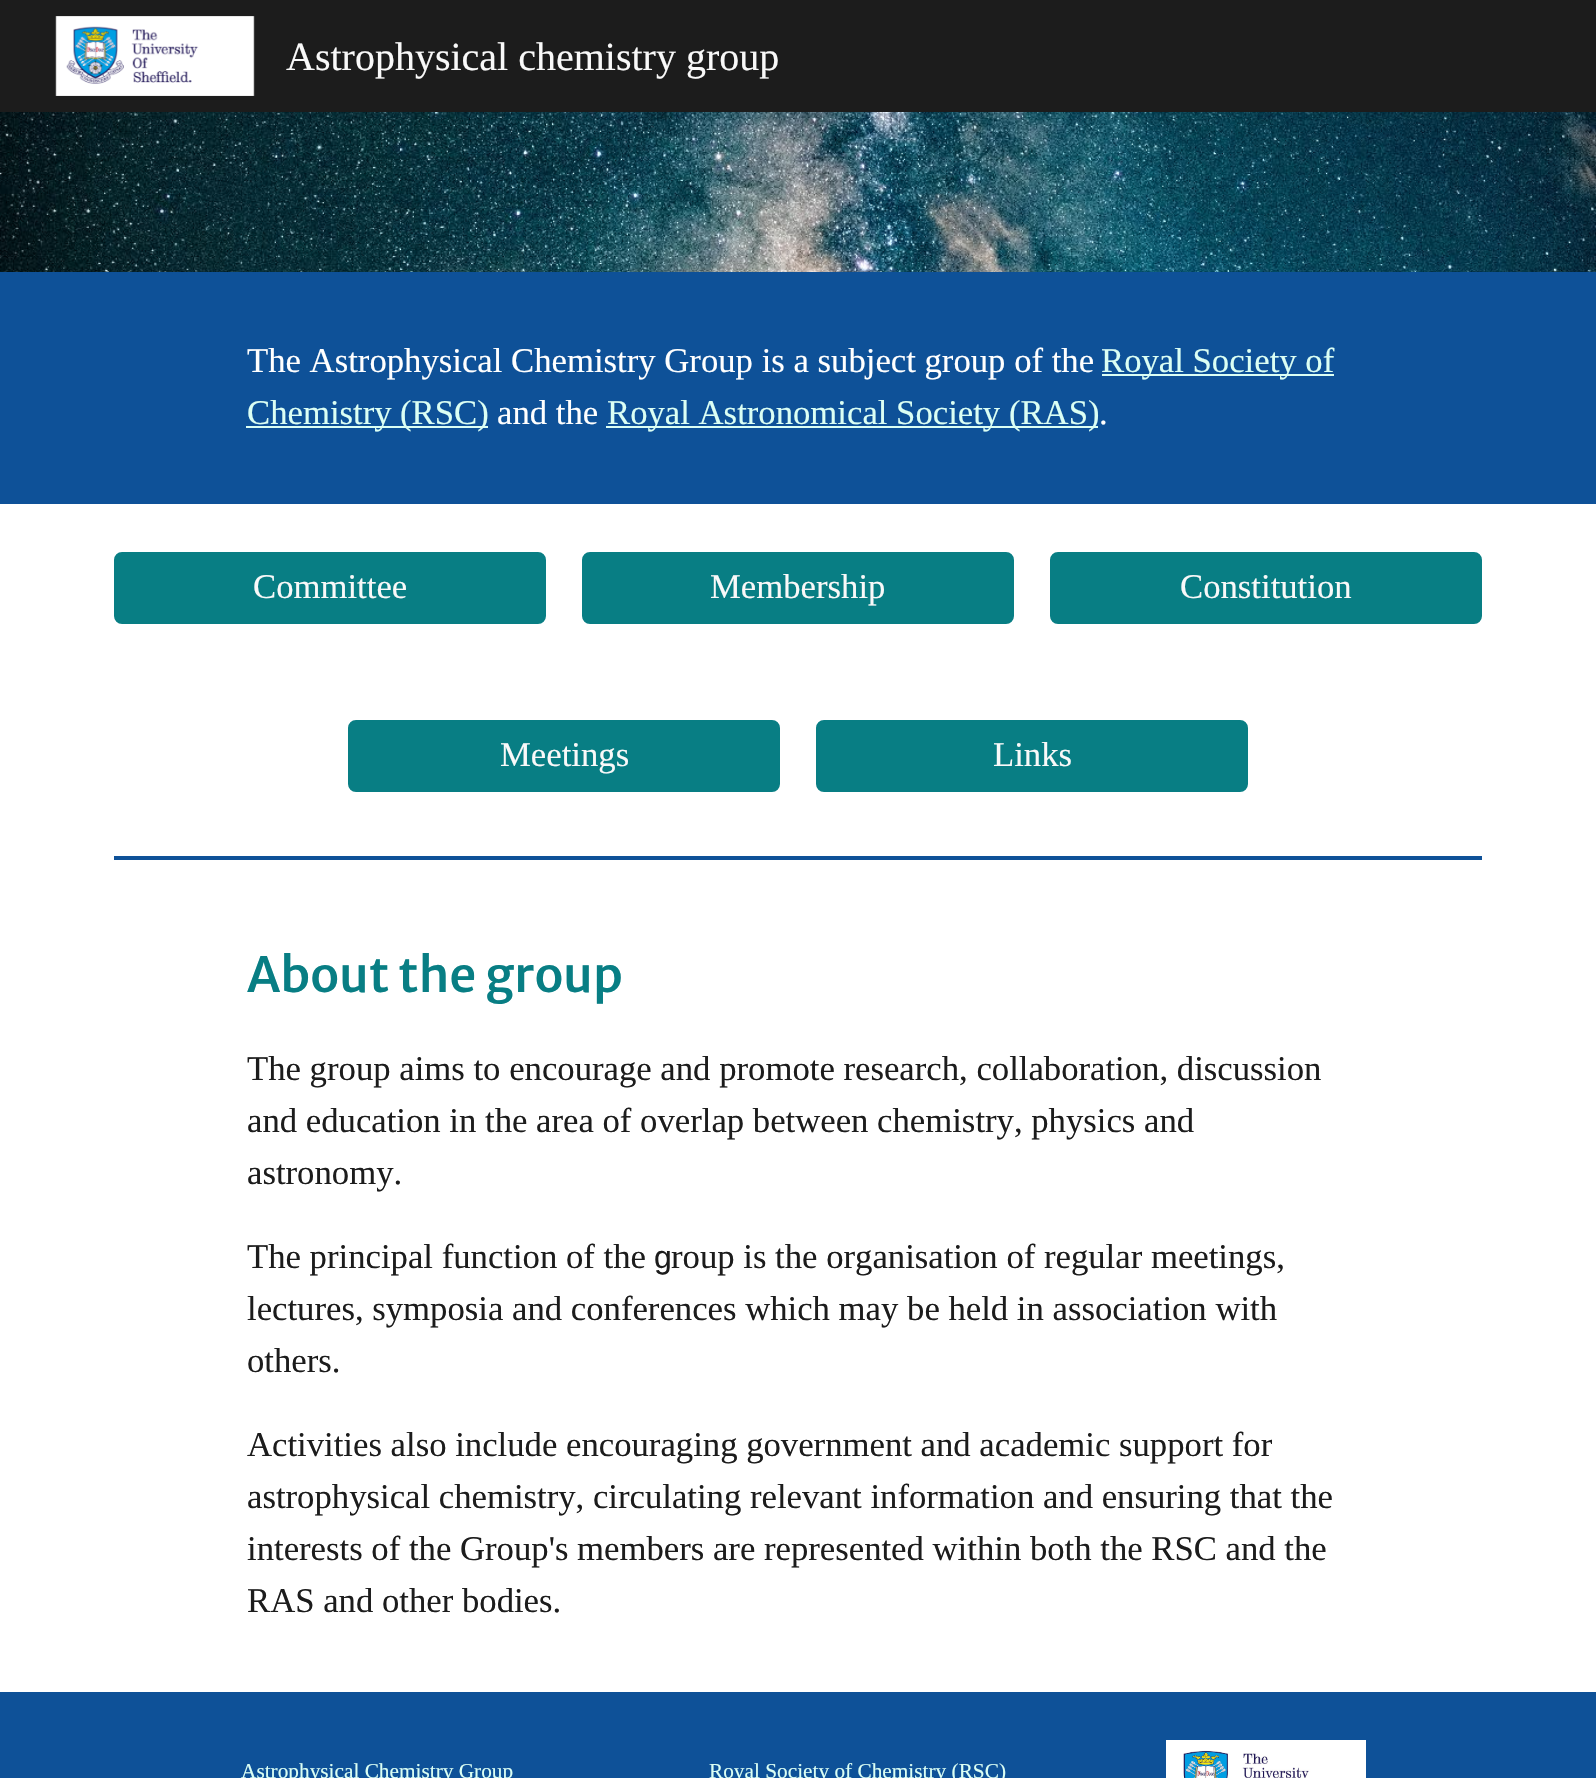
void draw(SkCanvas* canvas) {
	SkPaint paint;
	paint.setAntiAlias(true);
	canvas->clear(0xffffffff);
	paint.setColor(0xff1c1c1c);
	canvas->drawRect(SkRect::MakeXYWH(0, 0, 1596, 112), paint);
	canvas->drawImageRect(SkImages::DeferredFromEncodedData(SkData::MakeFromFileName("img1.png")), SkRect::MakeXYWH(55, 16, 200, 80), SkSamplingOptions());
	SkFont f1(fontMgr->matchFamilyStyle("Liberation Serif", SkFontStyle::Normal()), 40);
	f1.setSubpixel(true);
	paint.setColor(0xfff9f9f9);
	canvas->drawString("Astrophysical chemistry group", 286, 70, f1, paint);
	canvas->drawImageRect(SkImages::DeferredFromEncodedData(SkData::MakeFromFileName("img2.png")), SkRect::MakeXYWH(0, 112, 1596, 160), SkSamplingOptions());
	paint.setColor(0xff0e5198);
	canvas->drawRect(SkRect::MakeXYWH(0, 272, 1596, 232), paint);
	SkFont f2(fontMgr->matchFamilyStyle("Liberation Serif", SkFontStyle::Normal()), 34.7);
	f2.setSubpixel(true);
	paint.setColor(0xffffffff);
	canvas->drawString("The Astrophysical Chemistry Group is a subject group of the", 247, 372, f2, paint);
	paint.setColor(0xffdbfff4);
	canvas->drawRect(SkRect::MakeXYWH(1102, 374, 232, 2), paint);
	canvas->drawString("Royal Society of", 1101, 372, f2, paint);
	canvas->drawRect(SkRect::MakeXYWH(246, 426, 144, 2), paint);
	canvas->drawString("Chemistry", 247, 424, f2, paint);
	canvas->drawRect(SkRect::MakeXYWH(390, 426, 98, 2), paint);
	canvas->drawString("(RSC)", 400, 424, f2, paint);
	paint.setColor(0xffffffff);
	canvas->drawString("and the", 497, 424, f2, paint);
	paint.setColor(0xffdbfff4);
	canvas->drawRect(SkRect::MakeXYWH(606, 426, 492, 2), paint);
	canvas->drawString("Royal Astronomical Society (RAS)", 607, 424, f2, paint);
	paint.setColor(0xffffffff);
	canvas->drawString(".", 1099, 424, f2, paint);
	paint.setColor(0xff087e84);
	canvas->drawRoundRect(SkRect::MakeXYWH(115, 553, 430, 70), 7, 7, paint);
	paint.setStroke(true);
	paint.setStrokeWidth(2);
	canvas->drawRoundRect(SkRect::MakeXYWH(115, 553, 430, 70), 7, 7, paint);
	paint.setStroke(false);
	paint.setColor(0xfff9f9f9);
	canvas->drawString("Committee", 253, 598, f2, paint);
	paint.setColor(0xff087e84);
	canvas->drawRoundRect(SkRect::MakeXYWH(583, 553, 430, 70), 7, 7, paint);
	paint.setStroke(true);
	canvas->drawRoundRect(SkRect::MakeXYWH(583, 553, 430, 70), 7, 7, paint);
	paint.setStroke(false);
	paint.setColor(0xfff9f9f9);
	canvas->drawString("Membership", 710, 598, f2, paint);
	paint.setColor(0xff087e84);
	canvas->drawRoundRect(SkRect::MakeXYWH(1051, 553, 430, 70), 7, 7, paint);
	paint.setStroke(true);
	canvas->drawRoundRect(SkRect::MakeXYWH(1051, 553, 430, 70), 7, 7, paint);
	paint.setStroke(false);
	paint.setColor(0xfff9f9f9);
	canvas->drawString("Constitution", 1180, 598, f2, paint);
	paint.setColor(0xff087e84);
	canvas->drawRoundRect(SkRect::MakeXYWH(349, 721, 430, 70), 7, 7, paint);
	paint.setStroke(true);
	canvas->drawRoundRect(SkRect::MakeXYWH(349, 721, 430, 70), 7, 7, paint);
	paint.setStroke(false);
	paint.setColor(0xfff9f9f9);
	canvas->drawString("Meetings", 500, 766, f2, paint);
	paint.setColor(0xff087e84);
	canvas->drawRoundRect(SkRect::MakeXYWH(817, 721, 430, 70), 7, 7, paint);
	paint.setStroke(true);
	canvas->drawRoundRect(SkRect::MakeXYWH(817, 721, 430, 70), 7, 7, paint);
	paint.setStroke(false);
	paint.setColor(0xfff9f9f9);
	canvas->drawString("Links", 993, 766, f2, paint);
	paint.setColor(0xff0e5198);
	canvas->drawRect(SkRect::MakeXYWH(114, 856, 1368, 4), paint);
	SkFont f3(fontMgr->matchFamilyStyle("Merriweather Sans", SkFontStyle(500, SkFontStyle::kNormal_Width, SkFontStyle::kUpright_Slant)), 48);
	f3.setSubpixel(true);
	paint.setColor(0xff087e84);
	canvas->drawString("About the group", 247, 992, f3, paint);
	paint.setColor(0xff1c1c1c);
	canvas->drawString("The group aims to encourage and promote research, collaboration, discussion", 247, 1080, f2, paint);
	canvas->drawString("and education in the area of overlap between chemistry, physics and", 247, 1132, f2, paint);
	canvas->drawString("astronomy.", 247, 1184, f2, paint);
	canvas->drawString("The principal function of the", 247, 1268, f2, paint);
	SkFont f4(fontMgr->matchFamilyStyle("Liberation Sans", SkFontStyle::Normal()), 32);
	f4.setSubpixel(true);
	canvas->drawString("g", 654, 1268, f4, paint);
	canvas->drawString("roup is the organisation of regular meetings,", 671, 1268, f2, paint);
	canvas->drawString("lectures, symposia and conferences which may be held in association with", 247, 1320, f2, paint);
	canvas->drawString("others.", 247, 1372, f2, paint);
	canvas->drawString("Activities also include encouraging government and academic support for", 247, 1456, f2, paint);
	canvas->drawString("astrophysical chemistry, circulating relevant information and ensuring that the", 247, 1508, f2, paint);
	canvas->drawString("interests of the Group's members are represented within both the RSC and the", 247, 1560, f2, paint);
	canvas->drawString("RAS and other bodies.", 247, 1612, f2, paint);
	paint.setColor(0xff0e5198);
	canvas->drawRect(SkRect::MakeXYWH(0, 1692, 1596, 86), paint);
	SkFont f5(fontMgr->matchFamilyStyle("Liberation Serif", SkFontStyle::Normal()), 21.3);
	f5.setSubpixel(true);
	paint.setColor(0xffdbfff4);
	canvas->drawString("Astrophysical Chemistry Group", 241, 1778, f5, paint);
	canvas->drawString("Royal Society of Chemistry (RSC)", 709, 1778, f5, paint);
	canvas->drawImageRect(SkImages::DeferredFromEncodedData(SkData::MakeFromFileName("img3.png")), SkRect::MakeXYWH(1166, 1740, 200, 38), SkSamplingOptions());
}
